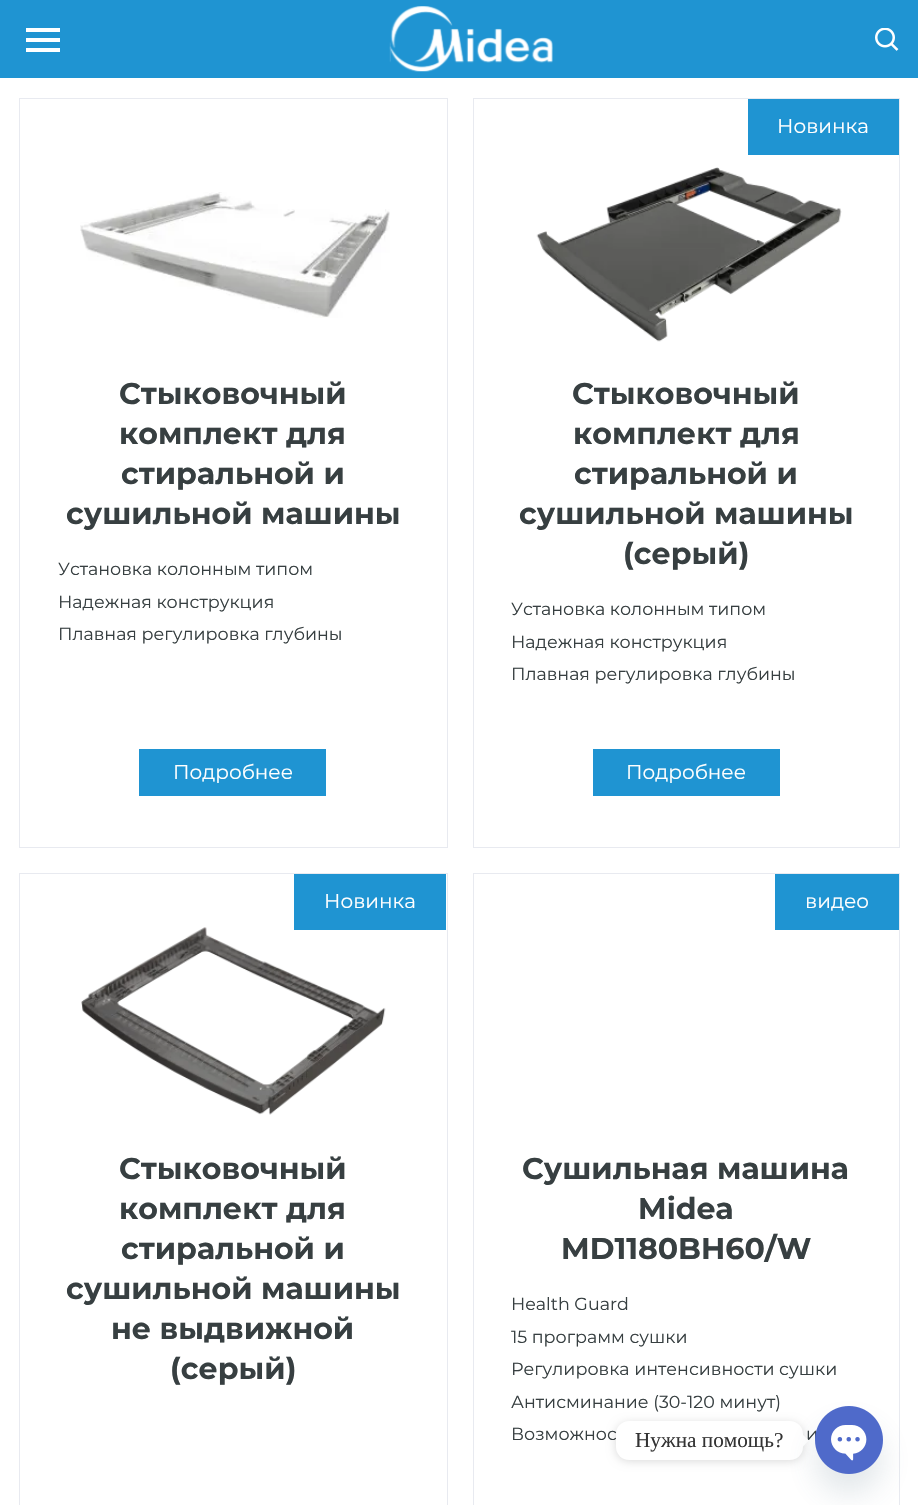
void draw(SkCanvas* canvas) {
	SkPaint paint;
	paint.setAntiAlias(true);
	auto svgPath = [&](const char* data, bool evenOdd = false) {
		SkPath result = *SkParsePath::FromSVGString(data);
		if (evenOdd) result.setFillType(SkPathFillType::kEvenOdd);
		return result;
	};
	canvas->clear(0xffffffff);
	paint.setColor(0xff1f94d2);
	canvas->drawRect(SkRect::MakeXYWH(0, 0, 918, 78), paint);
	paint.setColor(0xffffffff);
	canvas->drawRect(SkRect::MakeXYWH(26, 28, 34, 4), paint);
	canvas->drawRect(SkRect::MakeXYWH(26, 38, 34, 4), paint);
	canvas->drawRect(SkRect::MakeXYWH(26, 48, 34, 4), paint);
	canvas->drawImageRect(SkImages::DeferredFromEncodedData(SkData::MakeFromFileName("img1.png")), SkRect::MakeXYWH(389, 6, 164, 66), SkSamplingOptions());
	canvas->drawImageRect(SkImages::DeferredFromEncodedData(SkData::MakeFromFileName("img2.png")), SkRect::MakeXYWH(875, 28, 24, 23), SkSamplingOptions());
	paint.setStroke(true);
	paint.setStrokeWidth(1);
	paint.setColor(0xffe8eaf0);
	canvas->drawRect(SkRect::MakeXYWH(19.5, 98.5, 428, 749), paint);
	canvas->drawImageRect(SkImages::DeferredFromEncodedData(SkData::MakeFromFileName("img3.png")), SkRect::MakeXYWH(80, 192, 310, 126), SkSamplingOptions());
	SkFont f1(fontMgr->matchFamilyStyle("Montserrat", SkFontStyle::Bold()), 30);
	f1.setSubpixel(true);
	paint.setStroke(false);
	paint.setColor(0xff373f41);
	canvas->drawString("Стыковочный", 119, 404, f1, paint);
	canvas->drawString("комплект для", 119, 444, f1, paint);
	canvas->drawString("стиральной и", 121, 484, f1, paint);
	canvas->drawString("сушильной машины", 66, 524, f1, paint);
	SkFont f2(fontMgr->matchFamilyStyle("Montserrat", SkFontStyle::Normal()), 17.5);
	f2.setSubpixel(true);
	canvas->drawString("Установка колонным типом", 58, 575, f2, paint);
	canvas->drawString("Надежная конструкция", 58, 608, f2, paint);
	canvas->drawString("Плавная регулировка глубины", 58, 640, f2, paint);
	paint.setColor(0xff1f94d2);
	canvas->drawRect(SkRect::MakeXYWH(139, 749, 187, 47), paint);
	SkFont f3(fontMgr->matchFamilyStyle("Montserrat", SkFontStyle::Normal()), 20);
	f3.setSubpixel(true);
	paint.setColor(0xffffffff);
	canvas->drawString("Подробнее", 173, 779, f3, paint);
	paint.setStroke(true);
	paint.setColor(0xffe8eaf0);
	canvas->drawRect(SkRect::MakeXYWH(473.5, 98.5, 426, 749), paint);
	paint.setStroke(false);
	paint.setColor(0xff1f94d2);
	canvas->drawRect(SkRect::MakeXYWH(748, 99, 151, 56), paint);
	paint.setColor(0xffffffff);
	canvas->drawString("Новинка", 777, 133, f3, paint);
	canvas->drawImageRect(SkImages::DeferredFromEncodedData(SkData::MakeFromFileName("img4.png")), SkRect::MakeXYWH(536, 167, 306, 175), SkSamplingOptions());
	paint.setColor(0xff373f41);
	canvas->drawString("Стыковочный", 572, 404, f1, paint);
	canvas->drawString("комплект для", 573, 444, f1, paint);
	canvas->drawString("стиральной и", 574, 484, f1, paint);
	canvas->drawString("сушильной машины", 519, 524, f1, paint);
	canvas->drawString("(серый)", 623, 564, f1, paint);
	canvas->drawString("Установка колонным типом", 511, 615, f2, paint);
	canvas->drawString("Надежная конструкция", 511, 648, f2, paint);
	canvas->drawString("Плавная регулировка глубины", 511, 680, f2, paint);
	paint.setColor(0xff1f94d2);
	canvas->drawRect(SkRect::MakeXYWH(593, 749, 187, 47), paint);
	paint.setColor(0xffffffff);
	canvas->drawString("Подробнее", 626, 779, f3, paint);
	paint.setStroke(true);
	paint.setColor(0xffe8eaf0);
	canvas->drawRect(SkRect::MakeXYWH(19.5, 873.5, 428, 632), paint);
	canvas->drawImageRect(SkImages::DeferredFromEncodedData(SkData::MakeFromFileName("img5.png")), SkRect::MakeXYWH(81, 927, 305, 188), SkSamplingOptions());
	paint.setStroke(false);
	paint.setColor(0xff1f94d2);
	canvas->drawRect(SkRect::MakeXYWH(294, 874, 152, 56), paint);
	paint.setColor(0xffffffff);
	canvas->drawString("Новинка", 324, 908, f3, paint);
	paint.setColor(0xff373f41);
	canvas->drawString("Стыковочный", 119, 1179, f1, paint);
	canvas->drawString("комплект для", 119, 1219, f1, paint);
	canvas->drawString("стиральной и", 121, 1259, f1, paint);
	canvas->drawString("сушильной машины", 66, 1299, f1, paint);
	canvas->drawString("не выдвижной", 111, 1339, f1, paint);
	canvas->drawString("(серый)", 170, 1379, f1, paint);
	paint.setStroke(true);
	paint.setColor(0xffe8eaf0);
	canvas->drawRect(SkRect::MakeXYWH(473.5, 873.5, 426, 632), paint);
	paint.setStroke(false);
	paint.setColor(0xff1f94d2);
	canvas->drawRect(SkRect::MakeXYWH(775, 874, 124, 56), paint);
	paint.setColor(0xffffffff);
	canvas->drawString("видео", 805, 908, f3, paint);
	paint.setColor(0xff373f41);
	canvas->drawString("Сушильная машина", 522, 1179, f1, paint);
	canvas->drawString("Midea", 638, 1219, f1, paint);
	canvas->drawString("MD1180BH60/W", 561, 1259, f1, paint);
	canvas->drawString("Health Guard", 511, 1310, f2, paint);
	canvas->drawString("15 программ сушки", 511, 1343, f2, paint);
	canvas->drawString("Регулировка интенсивности сушки", 511, 1375, f2, paint);
	canvas->drawString("Антисминание (30-120 минут)", 511, 1408, f2, paint);
	canvas->drawString("Возможнос", 511, 1440, f2, paint);
	canvas->drawString("и", 806, 1440, f2, paint);
	paint.setColor(0x26000000);
	paint.setMaskFilter(SkMaskFilter::MakeBlur(kNormal_SkBlurStyle, 5));
	canvas->drawRoundRect(SkRect::MakeXYWH(616, 1423, 187, 38), 13, 13, paint);
	paint.setMaskFilter(nullptr);
	paint.setColor(0xffffffff);
	canvas->drawRoundRect(SkRect::MakeXYWH(616, 1421, 187, 39), 13, 13, paint);
	SkFont f4(fontMgr->matchFamilyStyle("Liberation Serif", SkFontStyle::Normal()), 21.25);
	f4.setSubpixel(true);
	paint.setColor(0xff333333);
	canvas->drawString("Нужна помощь?", 635, 1447, f4, paint);
	paint.setColor(0xffffffff);
	canvas->drawPath(svgPath("M802.5 1447V1434.5L809 1440.5Z"), paint);
	paint.setColor(0x2949687e);
	paint.setMaskFilter(SkMaskFilter::MakeBlur(kNormal_SkBlurStyle, 15));
	canvas->drawRoundRect(SkRect::MakeXYWH(815, 1426, 68, 68), 34, 34, paint);
	paint.setMaskFilter(nullptr);
	canvas->drawImageRect(SkImages::DeferredFromEncodedData(SkData::MakeFromFileName("img6.png")), SkRect::MakeXYWH(815, 1406, 68, 68), SkSamplingOptions());
}
